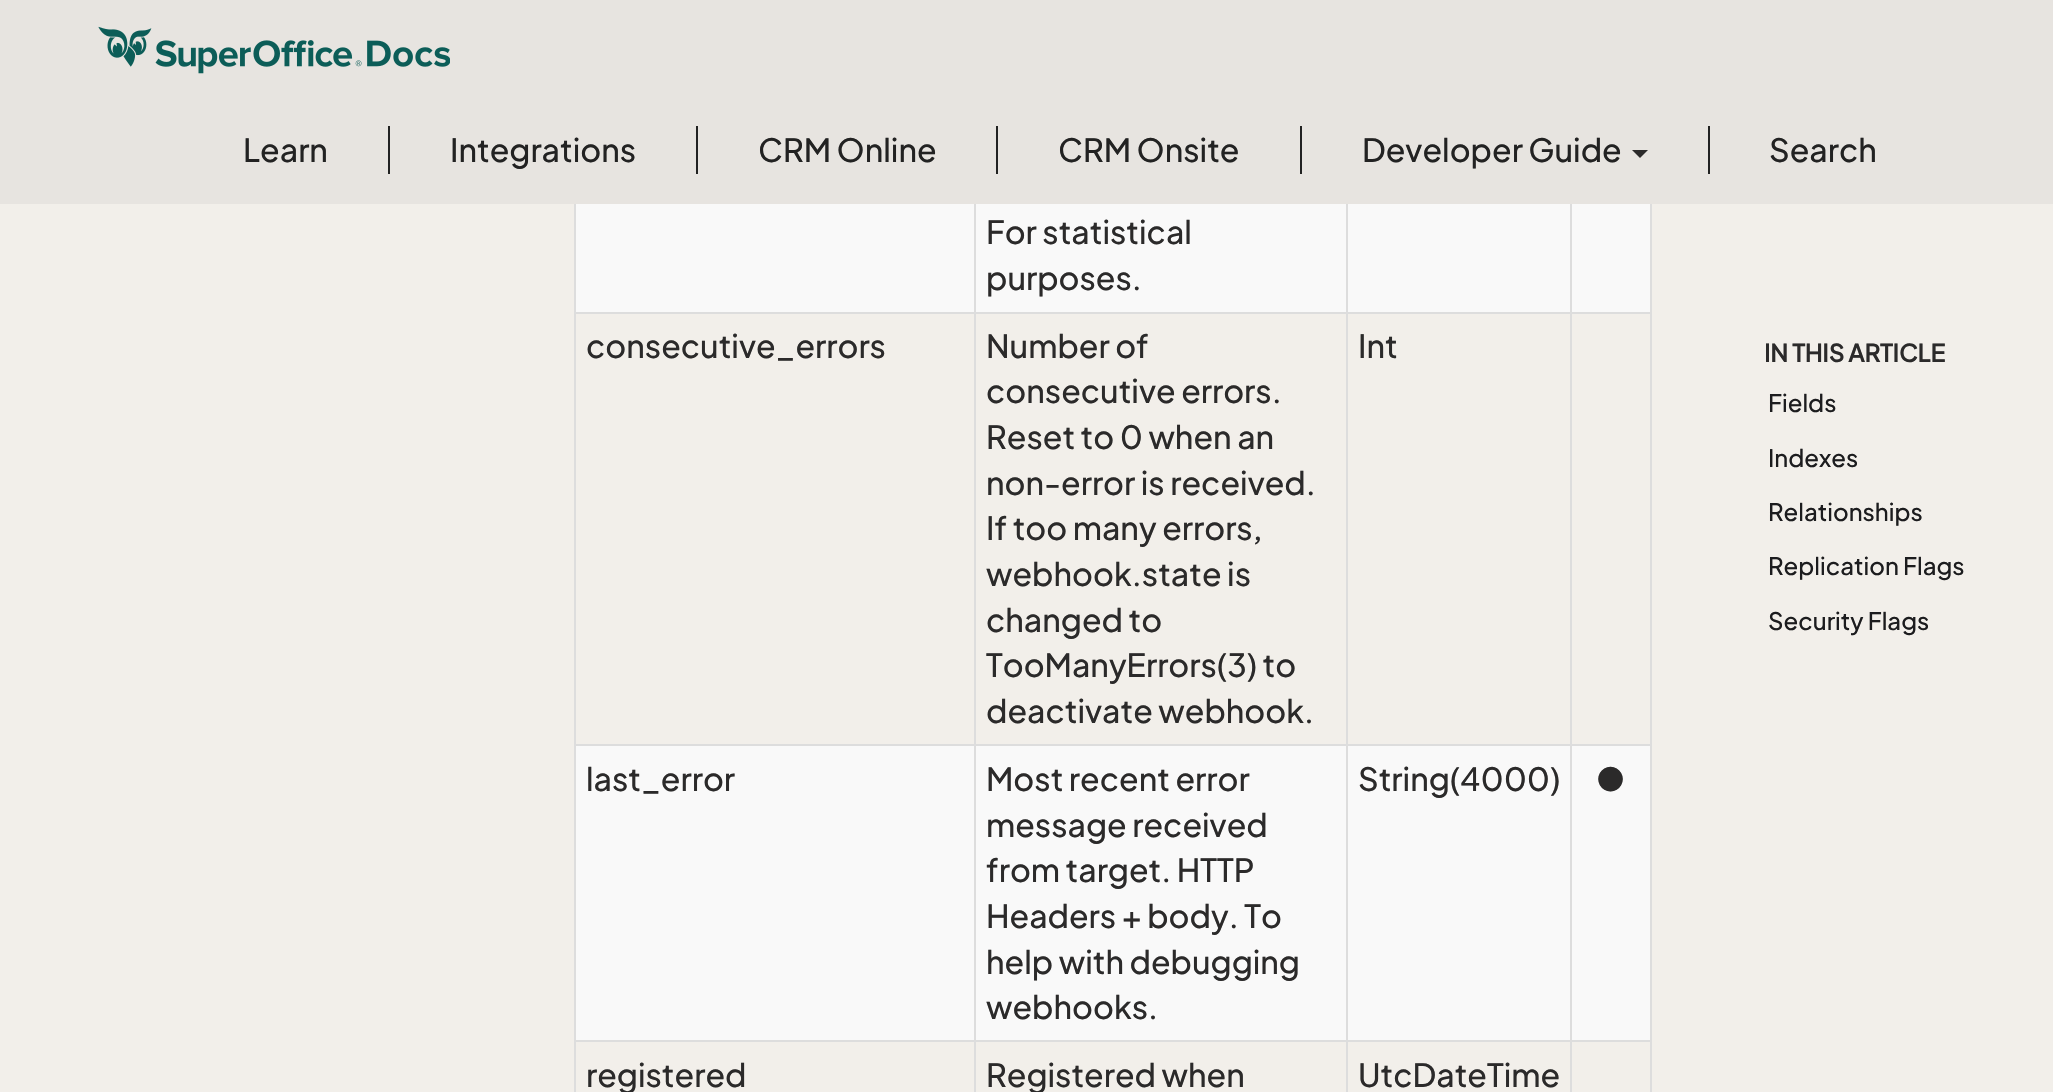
void draw(SkCanvas* canvas) {
	SkPaint paint;
	paint.setAntiAlias(true);
	auto svgPath = [&](const char* data, bool evenOdd = false) {
		SkPath result = *SkParsePath::FromSVGString(data);
		if (evenOdd) result.setFillType(SkPathFillType::kEvenOdd);
		return result;
	};
	canvas->clear(0xfff2efea);
	paint.setColor(0xffe7e4e0);
	canvas->drawRect(SkRect::MakeXYWH(0, 0, 2053, 204), paint);
	canvas->drawImageRect(SkImages::DeferredFromEncodedData(SkData::MakeFromFileName("img1.png")), SkRect::MakeXYWH(98, 26, 352, 48), SkSamplingOptions());
	paint.setColor(0xff222222);
	canvas->drawRect(SkRect::MakeXYWH(388, 126, 2, 48), paint);
	SkFont f1(fontMgr->matchFamilyStyle("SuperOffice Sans", SkFontStyle::Normal()), 32);
	f1.setSubpixel(true);
	canvas->drawString("Learn", 243, 162, f1, paint);
	canvas->drawRect(SkRect::MakeXYWH(696, 126, 2, 48), paint);
	canvas->drawString("Integrations", 450, 162, f1, paint);
	canvas->drawRect(SkRect::MakeXYWH(996, 126, 2, 48), paint);
	canvas->drawString("CRM Online", 758, 162, f1, paint);
	canvas->drawRect(SkRect::MakeXYWH(1300, 126, 2, 48), paint);
	canvas->drawString("CRM Onsite", 1058, 162, f1, paint);
	canvas->drawRect(SkRect::MakeXYWH(1708, 126, 2, 48), paint);
	canvas->drawString("Developer Guide", 1362, 162, f1, paint);
	paint.setColor(0xff2b2a2a);
	canvas->drawPath(svgPath("M1632 150H1648L1640 158Z"), paint);
	paint.setColor(0xff222222);
	canvas->drawString("Search", 1769, 162, f1, paint);
	paint.setColor(0xffdddddd);
	canvas->drawRect(SkRect::MakeXYWH(1650, 204, 2, 888), paint);
	canvas->drawRect(SkRect::MakeXYWH(574, 204, 2, 888), paint);
	paint.setColor(0xfff9f9f9);
	canvas->drawRect(SkRect::MakeXYWH(576, 204, 1074, 108), paint);
	paint.setColor(0xffdddddd);
	canvas->drawRect(SkRect::MakeXYWH(1570, 312, 82, 2), paint);
	canvas->drawRect(SkRect::MakeXYWH(1570, 744, 82, 2), paint);
	paint.setColor(0xfff9f9f9);
	canvas->drawRect(SkRect::MakeXYWH(576, 746, 1074, 294), paint);
	paint.setColor(0xffdddddd);
	canvas->drawRect(SkRect::MakeXYWH(1570, 1040, 82, 2), paint);
	canvas->drawRect(SkRect::MakeXYWH(1570, 1040, 2, 52), paint);
	canvas->drawRect(SkRect::MakeXYWH(1346, 1040, 226, 2), paint);
	canvas->drawRect(SkRect::MakeXYWH(1570, 744, 2, 298), paint);
	canvas->drawRect(SkRect::MakeXYWH(1346, 744, 226, 2), paint);
	canvas->drawRect(SkRect::MakeXYWH(1570, 312, 2, 434), paint);
	canvas->drawRect(SkRect::MakeXYWH(1346, 312, 226, 2), paint);
	canvas->drawRect(SkRect::MakeXYWH(1346, 1040, 2, 52), paint);
	canvas->drawRect(SkRect::MakeXYWH(974, 1040, 374, 2), paint);
	canvas->drawRect(SkRect::MakeXYWH(1346, 744, 2, 298), paint);
	canvas->drawRect(SkRect::MakeXYWH(974, 744, 374, 2), paint);
	canvas->drawRect(SkRect::MakeXYWH(1346, 312, 2, 434), paint);
	canvas->drawRect(SkRect::MakeXYWH(974, 312, 374, 2), paint);
	canvas->drawRect(SkRect::MakeXYWH(974, 1040, 2, 52), paint);
	canvas->drawRect(SkRect::MakeXYWH(574, 1040, 402, 2), paint);
	canvas->drawRect(SkRect::MakeXYWH(974, 744, 2, 298), paint);
	canvas->drawRect(SkRect::MakeXYWH(574, 744, 402, 2), paint);
	canvas->drawRect(SkRect::MakeXYWH(974, 312, 2, 434), paint);
	canvas->drawRect(SkRect::MakeXYWH(574, 312, 402, 2), paint);
	canvas->drawRect(SkRect::MakeXYWH(974, 204, 2, 110), paint);
	paint.setColor(0xff2b2a2a);
	canvas->drawString("For statistical", 986, 244, f1, paint);
	canvas->drawString("purposes.", 986, 290, f1, paint);
	paint.setColor(0xffdddddd);
	canvas->drawRect(SkRect::MakeXYWH(1346, 204, 2, 110), paint);
	canvas->drawRect(SkRect::MakeXYWH(1570, 204, 2, 110), paint);
	paint.setColor(0xff2b2a2a);
	canvas->drawString("consecutive_errors", 586, 358, f1, paint);
	canvas->drawString("Number of", 986, 358, f1, paint);
	canvas->drawString("consecutive errors.", 986, 403, f1, paint);
	canvas->drawString("Reset to 0 when an", 986, 449, f1, paint);
	canvas->drawString("non-error is received.", 986, 495, f1, paint);
	canvas->drawString("If too many errors,", 986, 540, f1, paint);
	canvas->drawString("webhook.state is", 986, 586, f1, paint);
	canvas->drawString("changed to", 986, 632, f1, paint);
	canvas->drawString("TooManyErrors(3) to", 986, 677, f1, paint);
	canvas->drawString("deactivate webhook.", 986, 723, f1, paint);
	canvas->drawString("Int", 1358, 358, f1, paint);
	canvas->drawString("last_error", 586, 791, f1, paint);
	canvas->drawString("Most recent error", 986, 791, f1, paint);
	canvas->drawString("message received", 986, 837, f1, paint);
	canvas->drawString("from target. HTTP", 986, 882, f1, paint);
	canvas->drawString("Headers + body. To", 986, 928, f1, paint);
	canvas->drawString("help with debugging", 986, 974, f1, paint);
	canvas->drawString("webhooks.", 986, 1019, f1, paint);
	canvas->drawString("String(4000)", 1358, 791, f1, paint);
	canvas->drawString("●", 1596, 791, f1, paint);
	canvas->drawString("registered", 586, 1087, f1, paint);
	canvas->drawString("Registered when", 986, 1087, f1, paint);
	canvas->drawString("UtcDateTime", 1358, 1087, f1, paint);
	SkFont f2(fontMgr->matchFamilyStyle("SuperOffice Sans", SkFontStyle::Bold()), 24);
	f2.setSubpixel(true);
	canvas->drawString("IN THIS ARTICLE", 1764, 362, f2, paint);
	SkFont f3(fontMgr->matchFamilyStyle("SuperOffice Sans", SkFontStyle::Normal()), 24);
	f3.setSubpixel(true);
	paint.setColor(0xff1c1c1e);
	canvas->drawString("Fields", 1768, 412, f3, paint);
	canvas->drawString("Indexes", 1768, 467, f3, paint);
	canvas->drawString("Relationships", 1768, 521, f3, paint);
	canvas->drawString("Replication Flags", 1768, 575, f3, paint);
	canvas->drawString("Security Flags", 1768, 630, f3, paint);
}
